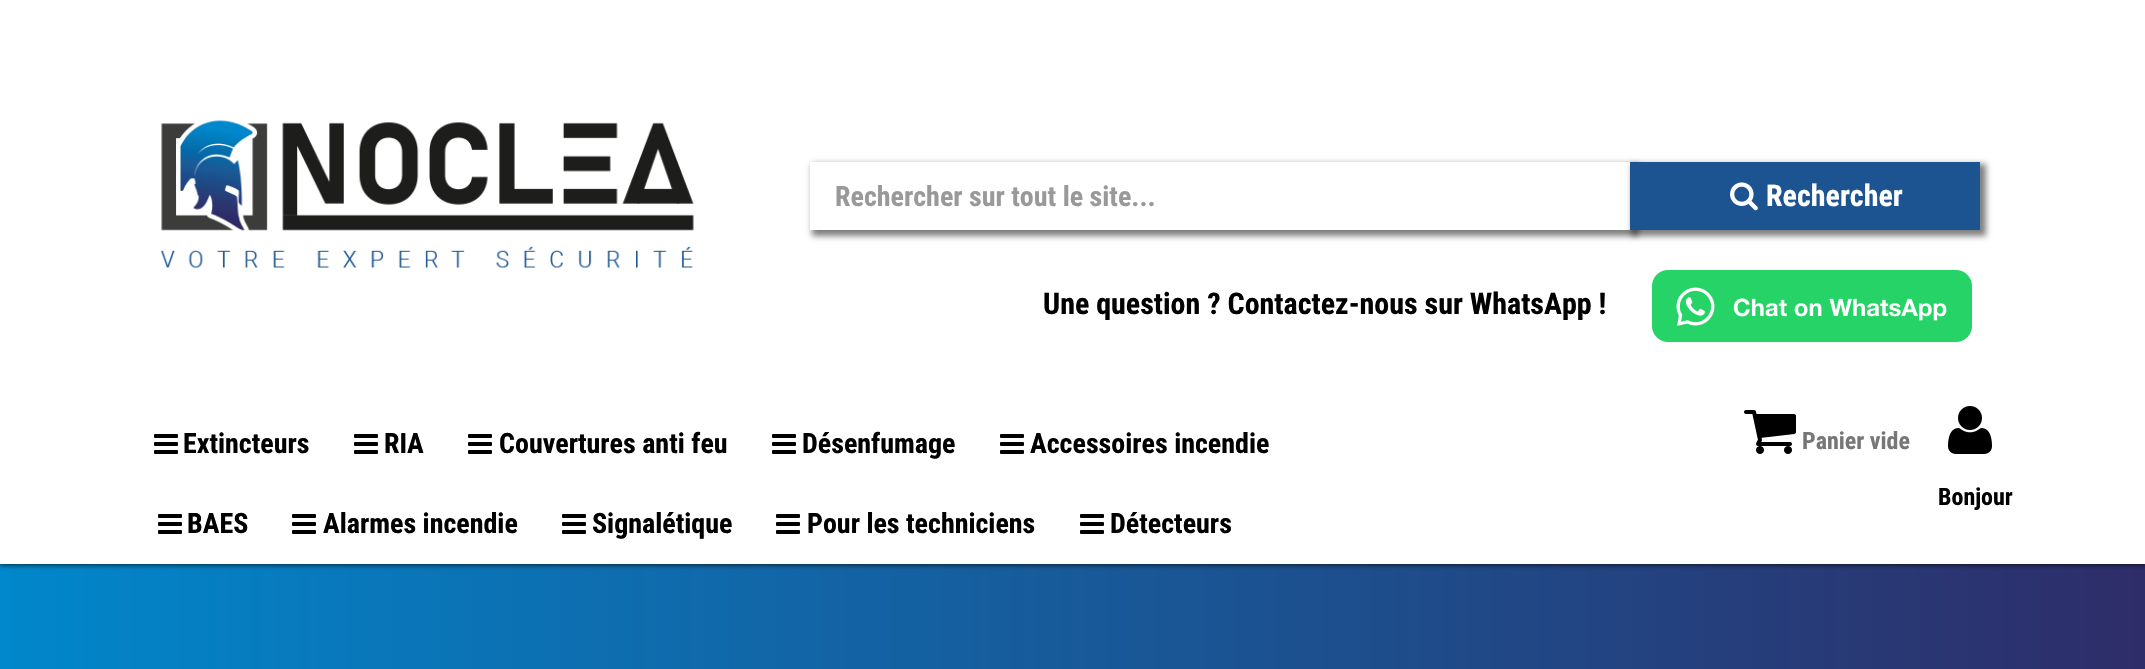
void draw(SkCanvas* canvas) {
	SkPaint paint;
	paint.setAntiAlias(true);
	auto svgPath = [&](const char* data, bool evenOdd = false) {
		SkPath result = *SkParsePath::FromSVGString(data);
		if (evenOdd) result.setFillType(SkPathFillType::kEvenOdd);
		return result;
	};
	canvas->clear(0xffffffff);
	{
		const SkColor colors[] = {0xff2e2d69, 0xff0187cb};
		const float stops[] = {0, 1};
		const SkPoint ends[] = {{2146, 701}, {0, 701}};
		paint.setShader(SkGradientShader::MakeLinear(ends, colors, stops, 2, SkTileMode::kClamp));
		paint.setAlpha(255);
	}
	canvas->drawRect(SkRect::MakeXYWH(0, 564, 2145, 105), paint);
	paint.setShader(nullptr);
	paint.setColor(0x80000000);
	paint.setMaskFilter(SkMaskFilter::MakeBlur(kNormal_SkBlurStyle, 2));
	canvas->drawRect(SkRect::MakeXYWH(0, 2, 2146, 564), paint);
	paint.setMaskFilter(nullptr);
	paint.setColor(0xffffffff);
	canvas->drawRect(SkRect::MakeXYWH(0, 0, 2145, 564), paint);
	canvas->drawImageRect(SkImages::DeferredFromEncodedData(SkData::MakeFromFileName("img1.png")), SkRect::MakeXYWH(160, 120, 534, 148), SkSamplingOptions());
	canvas->save();
	canvas->clipPath(svgPath("M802 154H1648V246H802ZM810 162H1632V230H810Z", true), true);
	paint.setColor(0x80000000);
	paint.setMaskFilter(SkMaskFilter::MakeBlur(kNormal_SkBlurStyle, 3));
	canvas->drawRect(SkRect::MakeXYWH(812, 164, 826, 72), paint);
	paint.setMaskFilter(nullptr);
	canvas->restore();
	SkFont f1(fontMgr->matchFamilyStyle("Roboto Condensed", SkFontStyle::Bold()), 28);
	f1.setSubpixel(true);
	paint.setColor(0xff999999);
	canvas->drawString("Rechercher sur tout le site...", 835, 206, f1, paint);
	paint.setColor(0x80000000);
	paint.setMaskFilter(SkMaskFilter::MakeBlur(kNormal_SkBlurStyle, 3));
	canvas->drawRect(SkRect::MakeXYWH(1632, 164, 354, 72), paint);
	paint.setMaskFilter(nullptr);
	paint.setColor(0xff1b5490);
	canvas->drawRect(SkRect::MakeXYWH(1630, 162, 350, 68), paint);
	canvas->drawImageRect(SkImages::DeferredFromEncodedData(SkData::MakeFromFileName("img2.png")), SkRect::MakeXYWH(1730, 182, 28, 29), SkSamplingOptions());
	SkFont f2(fontMgr->matchFamilyStyle("Roboto Condensed", SkFontStyle::Bold()), 30);
	f2.setSubpixel(true);
	paint.setColor(0xffffffff);
	canvas->drawString("Rechercher", 1766, 206, f2, paint);
	paint.setColor(0xff000000);
	canvas->drawString("Une question ? Contactez-nous sur WhatsApp !", 1043, 314, f2, paint);
	canvas->drawImageRect(SkImages::DeferredFromEncodedData(SkData::MakeFromFileName("img3.png")), SkRect::MakeXYWH(1652, 270, 320, 72), SkSamplingOptions());
	canvas->drawImageRect(SkImages::DeferredFromEncodedData(SkData::MakeFromFileName("img4.png")), SkRect::MakeXYWH(154, 434, 24, 20), SkSamplingOptions());
	canvas->drawString("Extincteurs", 183, 453, f1, paint);
	canvas->drawImageRect(SkImages::DeferredFromEncodedData(SkData::MakeFromFileName("img4.png")), SkRect::MakeXYWH(354, 434, 24, 20), SkSamplingOptions());
	canvas->drawString("RIA", 384, 453, f1, paint);
	canvas->drawImageRect(SkImages::DeferredFromEncodedData(SkData::MakeFromFileName("img4.png")), SkRect::MakeXYWH(468, 434, 24, 20), SkSamplingOptions());
	canvas->drawString("Couvertures anti feu", 499, 453, f1, paint);
	canvas->drawImageRect(SkImages::DeferredFromEncodedData(SkData::MakeFromFileName("img4.png")), SkRect::MakeXYWH(772, 434, 24, 20), SkSamplingOptions());
	canvas->drawString("Désenfumage", 802, 453, f1, paint);
	canvas->drawImageRect(SkImages::DeferredFromEncodedData(SkData::MakeFromFileName("img4.png")), SkRect::MakeXYWH(1000, 434, 24, 20), SkSamplingOptions());
	canvas->drawString("Accessoires incendie", 1030, 453, f1, paint);
	canvas->drawImageRect(SkImages::DeferredFromEncodedData(SkData::MakeFromFileName("img4.png")), SkRect::MakeXYWH(158, 514, 24, 20), SkSamplingOptions());
	canvas->drawString("BAES", 187, 533, f1, paint);
	canvas->drawImageRect(SkImages::DeferredFromEncodedData(SkData::MakeFromFileName("img4.png")), SkRect::MakeXYWH(292, 514, 24, 20), SkSamplingOptions());
	canvas->drawString("Alarmes incendie", 323, 533, f1, paint);
	canvas->drawImageRect(SkImages::DeferredFromEncodedData(SkData::MakeFromFileName("img4.png")), SkRect::MakeXYWH(562, 514, 24, 20), SkSamplingOptions());
	canvas->drawString("Signalétique", 592, 533, f1, paint);
	canvas->drawImageRect(SkImages::DeferredFromEncodedData(SkData::MakeFromFileName("img4.png")), SkRect::MakeXYWH(776, 514, 24, 20), SkSamplingOptions());
	canvas->drawString("Pour les techniciens", 807, 533, f1, paint);
	canvas->drawImageRect(SkImages::DeferredFromEncodedData(SkData::MakeFromFileName("img4.png")), SkRect::MakeXYWH(1080, 514, 24, 20), SkSamplingOptions());
	canvas->drawString("Détecteurs", 1110, 533, f1, paint);
	canvas->drawImageRect(SkImages::DeferredFromEncodedData(SkData::MakeFromFileName("img5.png")), SkRect::MakeXYWH(1744, 410, 52, 44), SkSamplingOptions());
	SkFont f3(fontMgr->matchFamilyStyle("Roboto Condensed", SkFontStyle::Bold()), 24);
	f3.setSubpixel(true);
	paint.setColor(0xff777777);
	canvas->drawString("Panier vide", 1802, 449, f3, paint);
	canvas->drawImageRect(SkImages::DeferredFromEncodedData(SkData::MakeFromFileName("img6.png")), SkRect::MakeXYWH(1948, 406, 44, 48), SkSamplingOptions());
	paint.setColor(0xff000000);
	canvas->drawString("Bonjour", 1938, 505, f3, paint);
}
